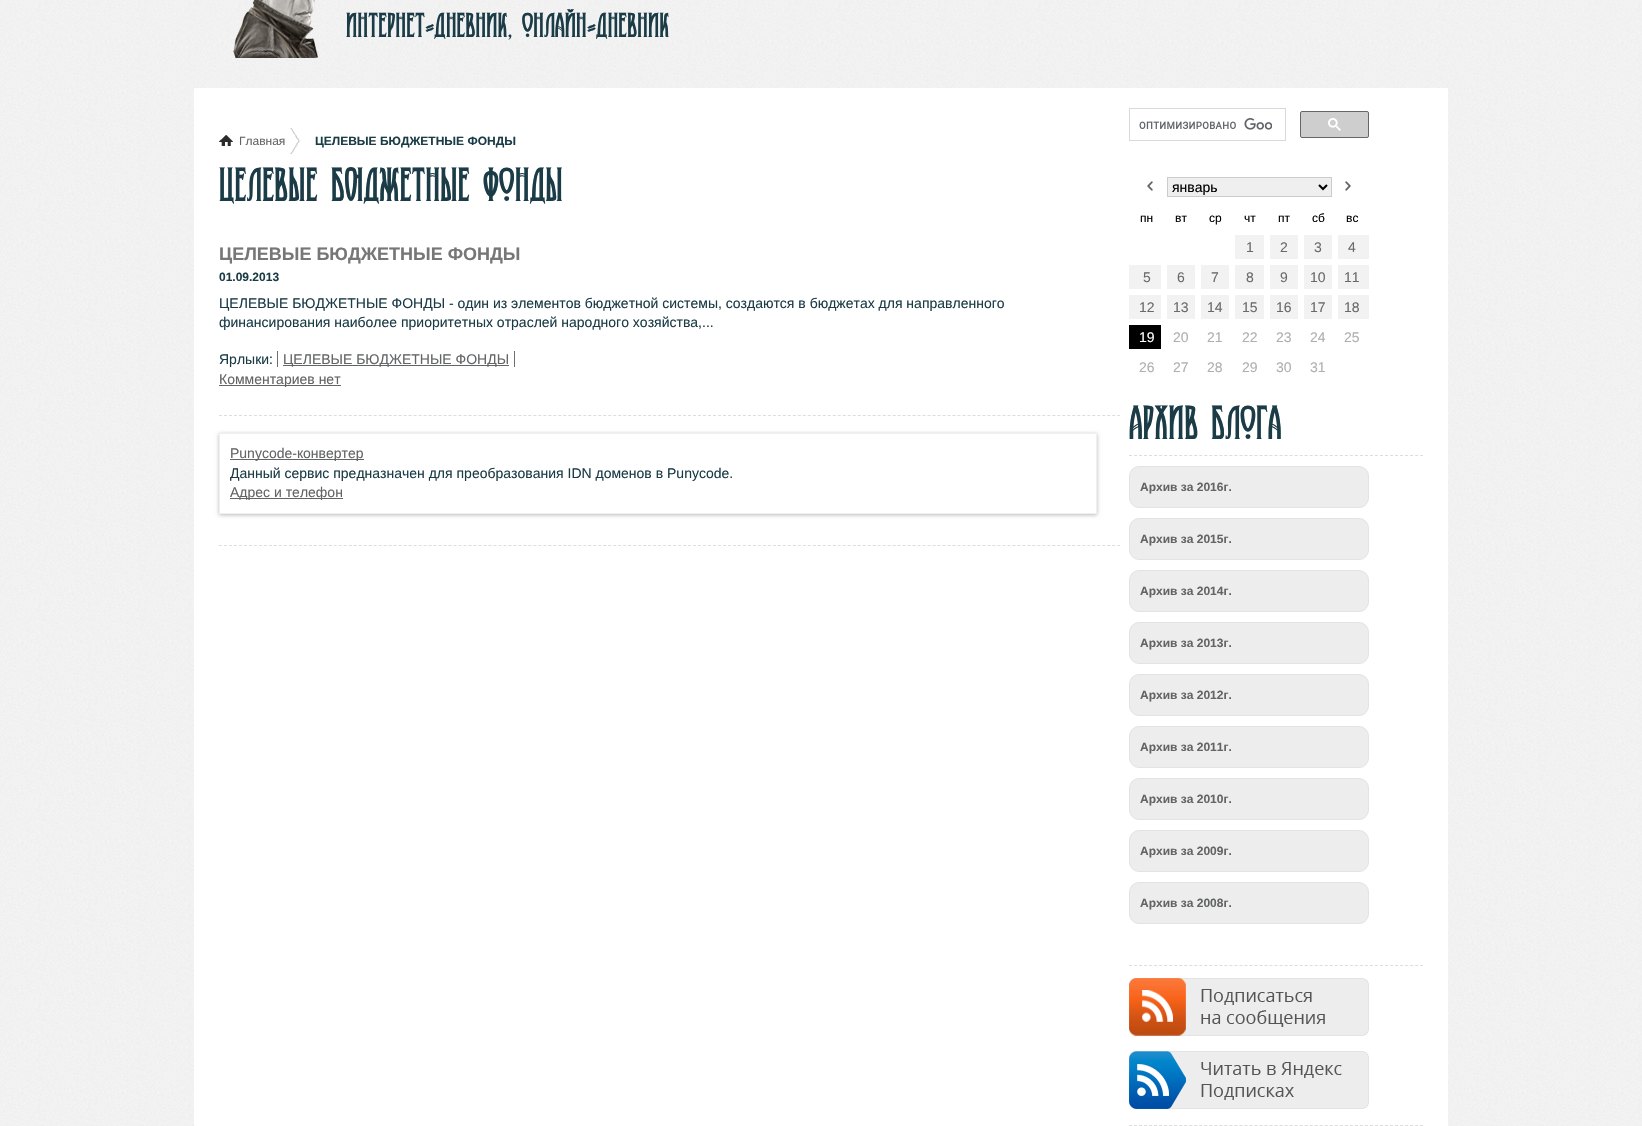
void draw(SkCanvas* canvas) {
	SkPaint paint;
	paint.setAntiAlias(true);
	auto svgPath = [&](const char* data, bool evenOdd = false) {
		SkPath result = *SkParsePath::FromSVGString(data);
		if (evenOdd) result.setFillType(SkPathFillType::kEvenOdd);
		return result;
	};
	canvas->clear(0xffffffff);
	canvas->drawImageRect(SkImages::DeferredFromEncodedData(SkData::MakeFromFileName("img1.png")), SkRect::MakeXYWH(0, 0, 1642, 1126), SkSamplingOptions());
	canvas->drawImageRect(SkImages::DeferredFromEncodedData(SkData::MakeFromFileName("img2.png")), SkRect::MakeXYWH(233, 0, 86, 58), SkSamplingOptions());
	SkFont f1(fontMgr->matchFamilyStyle("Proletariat", SkFontStyle::Normal()), 32);
	f1.setSubpixel(true);
	paint.setColor(0xff1b3c47);
	canvas->drawString("интернет-дневник, онлайн-дневник", 346, 37, f1, paint);
	paint.setColor(0xffffffff);
	canvas->drawRect(SkRect::MakeXYWH(194, 88, 1254, 1038), paint);
	canvas->drawImageRect(SkImages::DeferredFromEncodedData(SkData::MakeFromFileName("img3.png")), SkRect::MakeXYWH(219, 128, 81, 26), SkSamplingOptions());
	SkFont f2(fontMgr->matchFamilyStyle("Liberation Sans", SkFontStyle::Normal()), 12);
	f2.setSubpixel(true);
	paint.setColor(0xff636466);
	canvas->drawString("Главная", 239, 145, f2, paint);
	SkFont f3(fontMgr->matchFamilyStyle("Liberation Sans", SkFontStyle::Bold()), 12);
	f3.setSubpixel(true);
	paint.setColor(0xff1b3c47);
	canvas->drawString("ЦЕЛЕВЫЕ БЮДЖЕТНЫЕ ФОНДЫ", 315, 145, f3, paint);
	SkFont f4(fontMgr->matchFamilyStyle("Proletariat", SkFontStyle::Normal()), 44);
	f4.setSubpixel(true);
	canvas->drawString("ЦЕЛЕВЫЕ БЮДЖЕТНЫЕ ФОНДЫ", 219, 201, f4, paint);
	SkFont f5(fontMgr->matchFamilyStyle("Liberation Sans", SkFontStyle::Bold()), 18);
	f5.setSubpixel(true);
	paint.setColor(0xff777777);
	canvas->drawString("ЦЕЛЕВЫЕ БЮДЖЕТНЫЕ ФОНДЫ", 219, 260, f5, paint);
	paint.setColor(0xff1b3c47);
	canvas->drawString("01.09.2013", 219, 281, f3, paint);
	SkFont f6(fontMgr->matchFamilyStyle("Liberation Sans", SkFontStyle::Normal()), 14);
	f6.setSubpixel(true);
	canvas->drawString("ЦЕЛЕВЫЕ БЮДЖЕТНЫЕ ФОНДЫ - один из элементов бюджетной системы, создаются в бюджетах для направленного", 219, 308, f6, paint);
	canvas->drawString("финансирования наиболее приоритетных отраслей народного хозяйства,...", 219, 327, f6, paint);
	canvas->drawString("Ярлыки:", 219, 364, f6, paint);
	paint.setColor(0xff636466);
	canvas->drawRect(SkRect::MakeXYWH(283, 365, 226, 1), paint);
	canvas->drawString("ЦЕЛЕВЫЕ БЮДЖЕТНЫЕ ФОНДЫ", 283, 364, f6, paint);
	paint.setColor(0xff707070);
	canvas->drawRect(SkRect::MakeXYWH(514, 351, 1, 16), paint);
	canvas->drawRect(SkRect::MakeXYWH(277, 351, 1, 16), paint);
	paint.setColor(0xff636466);
	canvas->drawRect(SkRect::MakeXYWH(219, 385, 122, 1), paint);
	canvas->drawString("Комментариев нет", 219, 384, f6, paint);
	paint.setStroke(true);
	paint.setStrokeWidth(1);
	paint.setColor(0xffdddddd);
	paint.setPathEffect(SkDashPathEffect::Make({{3, 1.99f}}, 0));
	canvas->drawPath(svgPath("M219 415.5H1120"), paint);
	paint.setPathEffect(nullptr);
	canvas->save();
	canvas->clipPath(svgPath("M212 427H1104V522H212ZM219 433H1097V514H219Z", true), true);
	paint.setStroke(false);
	paint.setColor(0x45000000);
	paint.setMaskFilter(SkMaskFilter::MakeBlur(kNormal_SkBlurStyle, 2));
	canvas->drawRect(SkRect::MakeXYWH(219, 434, 878, 81), paint);
	paint.setMaskFilter(nullptr);
	canvas->restore();
	paint.setStroke(true);
	paint.setColor(0xffefefef);
	canvas->drawRect(SkRect::MakeXYWH(219.5, 433.5, 877, 80), paint);
	paint.setStroke(false);
	paint.setColor(0xff636466);
	canvas->drawRect(SkRect::MakeXYWH(230, 459, 134, 1), paint);
	canvas->drawString("Punycode-конвертер", 230, 458, f6, paint);
	paint.setColor(0xff1b3c47);
	canvas->drawString("Данный сервис предназначен для преобразования IDN доменов в Punycode.", 230, 478, f6, paint);
	paint.setColor(0xff636466);
	canvas->drawRect(SkRect::MakeXYWH(230, 498, 113, 1), paint);
	canvas->drawString("Адрес и телефон", 230, 497, f6, paint);
	paint.setStroke(true);
	paint.setColor(0xffdddddd);
	paint.setPathEffect(SkDashPathEffect::Make({{3, 1.99f}}, 0));
	canvas->drawPath(svgPath("M219 545.5H1120"), paint);
	paint.setPathEffect(nullptr);
	paint.setColor(0xffd9d9d9);
	canvas->drawRect(SkRect::MakeXYWH(1129.5, 108.5, 156, 32), paint);
	canvas->drawImageRect(SkImages::DeferredFromEncodedData(SkData::MakeFromFileName("img4.png")), SkRect::MakeXYWH(1139, 118, 133, 12), SkSamplingOptions());
	paint.setStroke(false);
	paint.setColor(0xffcecece);
	canvas->drawRoundRect(SkRect::MakeXYWH(1300.5, 111.5, 68, 26), 1.5, 1.5, paint);
	paint.setStroke(true);
	paint.setColor(0xff666666);
	canvas->drawRoundRect(SkRect::MakeXYWH(1300.5, 111.5, 68, 26), 1.5, 1.5, paint);
	canvas->drawImageRect(SkImages::DeferredFromEncodedData(SkData::MakeFromFileName("img5.png")), SkRect::MakeXYWH(1328, 118, 13, 13), SkSamplingOptions());
	canvas->drawImageRect(SkImages::DeferredFromEncodedData(SkData::MakeFromFileName("img6.png")), SkRect::MakeXYWH(1147, 181, 6, 10), SkSamplingOptions());
	paint.setStroke(false);
	paint.setColor(0xffefefef);
	canvas->drawRect(SkRect::MakeXYWH(1167.5, 177.5, 164, 19), paint);
	paint.setStroke(true);
	paint.setColor(0xffcccccc);
	canvas->drawRect(SkRect::MakeXYWH(1167.5, 177.5, 164, 19), paint);
	paint.setStrokeWidth(2);
	paint.setColor(0xff000000);
	canvas->drawPath(svgPath("M1319 185L1323 189L1327 185"), paint);
	paint.setStroke(false);
	canvas->drawString("январь", 1172, 192, f6, paint);
	canvas->drawImageRect(SkImages::DeferredFromEncodedData(SkData::MakeFromFileName("img7.png")), SkRect::MakeXYWH(1345, 181, 6, 10), SkSamplingOptions());
	canvas->drawString("пн", 1140, 222, f2, paint);
	canvas->drawString("вт", 1175, 222, f2, paint);
	canvas->drawString("ср", 1209, 222, f2, paint);
	canvas->drawString("чт", 1244, 222, f2, paint);
	canvas->drawString("пт", 1278, 222, f2, paint);
	canvas->drawString("сб", 1312, 222, f2, paint);
	canvas->drawString("вс", 1346, 222, f2, paint);
	paint.setColor(0xfff2f2f2);
	canvas->drawRect(SkRect::MakeXYWH(1235, 235, 29, 24), paint);
	paint.setColor(0xff6a6a6a);
	canvas->drawString("1", 1246, 252, f6, paint);
	paint.setColor(0xfff2f2f2);
	canvas->drawRect(SkRect::MakeXYWH(1270, 235, 28, 24), paint);
	paint.setColor(0xff6a6a6a);
	canvas->drawString("2", 1280, 252, f6, paint);
	paint.setColor(0xfff2f2f2);
	canvas->drawRect(SkRect::MakeXYWH(1304, 235, 28, 24), paint);
	paint.setColor(0xff6a6a6a);
	canvas->drawString("3", 1314, 252, f6, paint);
	paint.setColor(0xfff2f2f2);
	canvas->drawRect(SkRect::MakeXYWH(1338, 235, 31, 24), paint);
	paint.setColor(0xff6a6a6a);
	canvas->drawString("4", 1348, 252, f6, paint);
	paint.setColor(0xfff2f2f2);
	canvas->drawRect(SkRect::MakeXYWH(1129, 265, 32, 24), paint);
	paint.setColor(0xff6a6a6a);
	canvas->drawString("5", 1143, 282, f6, paint);
	paint.setColor(0xfff2f2f2);
	canvas->drawRect(SkRect::MakeXYWH(1167, 265, 28, 24), paint);
	paint.setColor(0xff6a6a6a);
	canvas->drawString("6", 1177, 282, f6, paint);
	paint.setColor(0xfff2f2f2);
	canvas->drawRect(SkRect::MakeXYWH(1201, 265, 28, 24), paint);
	paint.setColor(0xff6a6a6a);
	canvas->drawString("7", 1211, 282, f6, paint);
	paint.setColor(0xfff2f2f2);
	canvas->drawRect(SkRect::MakeXYWH(1235, 265, 29, 24), paint);
	paint.setColor(0xff6a6a6a);
	canvas->drawString("8", 1246, 282, f6, paint);
	paint.setColor(0xfff2f2f2);
	canvas->drawRect(SkRect::MakeXYWH(1270, 265, 28, 24), paint);
	paint.setColor(0xff6a6a6a);
	canvas->drawString("9", 1280, 282, f6, paint);
	paint.setColor(0xfff2f2f2);
	canvas->drawRect(SkRect::MakeXYWH(1304, 265, 28, 24), paint);
	paint.setColor(0xff6a6a6a);
	canvas->drawString("10", 1310, 282, f6, paint);
	paint.setColor(0xfff2f2f2);
	canvas->drawRect(SkRect::MakeXYWH(1338, 265, 31, 24), paint);
	paint.setColor(0xff6a6a6a);
	canvas->drawString("11", 1344, 282, f6, paint);
	paint.setColor(0xfff2f2f2);
	canvas->drawRect(SkRect::MakeXYWH(1129, 295, 32, 24), paint);
	paint.setColor(0xff6a6a6a);
	canvas->drawString("12", 1139, 312, f6, paint);
	paint.setColor(0xfff2f2f2);
	canvas->drawRect(SkRect::MakeXYWH(1167, 295, 28, 24), paint);
	paint.setColor(0xff6a6a6a);
	canvas->drawString("13", 1173, 312, f6, paint);
	paint.setColor(0xfff2f2f2);
	canvas->drawRect(SkRect::MakeXYWH(1201, 295, 28, 24), paint);
	paint.setColor(0xff6a6a6a);
	canvas->drawString("14", 1207, 312, f6, paint);
	paint.setColor(0xfff2f2f2);
	canvas->drawRect(SkRect::MakeXYWH(1235, 295, 29, 24), paint);
	paint.setColor(0xff6a6a6a);
	canvas->drawString("15", 1242, 312, f6, paint);
	paint.setColor(0xfff2f2f2);
	canvas->drawRect(SkRect::MakeXYWH(1270, 295, 28, 24), paint);
	paint.setColor(0xff6a6a6a);
	canvas->drawString("16", 1276, 312, f6, paint);
	paint.setColor(0xfff2f2f2);
	canvas->drawRect(SkRect::MakeXYWH(1304, 295, 28, 24), paint);
	paint.setColor(0xff6a6a6a);
	canvas->drawString("17", 1310, 312, f6, paint);
	paint.setColor(0xfff2f2f2);
	canvas->drawRect(SkRect::MakeXYWH(1338, 295, 31, 24), paint);
	paint.setColor(0xff6a6a6a);
	canvas->drawString("18", 1344, 312, f6, paint);
	paint.setColor(0xff000000);
	canvas->drawRect(SkRect::MakeXYWH(1129, 325, 32, 24), paint);
	paint.setColor(0xffffffff);
	canvas->drawString("19", 1139, 342, f6, paint);
	paint.setColor(0xffafafaf);
	canvas->drawString("20", 1173, 342, f6, paint);
	canvas->drawString("21", 1207, 342, f6, paint);
	canvas->drawString("22", 1242, 342, f6, paint);
	canvas->drawString("23", 1276, 342, f6, paint);
	canvas->drawString("24", 1310, 342, f6, paint);
	canvas->drawString("25", 1344, 342, f6, paint);
	canvas->drawString("26", 1139, 372, f6, paint);
	canvas->drawString("27", 1173, 372, f6, paint);
	canvas->drawString("28", 1207, 372, f6, paint);
	canvas->drawString("29", 1242, 372, f6, paint);
	canvas->drawString("30", 1276, 372, f6, paint);
	canvas->drawString("31", 1310, 372, f6, paint);
	paint.setColor(0xff1b3c47);
	canvas->drawString("Архив блога", 1129, 439, f4, paint);
	paint.setStroke(true);
	paint.setStrokeWidth(1);
	paint.setColor(0xffdddddd);
	paint.setPathEffect(SkDashPathEffect::Make({{3, 2.02f}}, 0));
	canvas->drawPath(svgPath("M1129 455.5H1423"), paint);
	paint.setPathEffect(nullptr);
	paint.setStroke(false);
	paint.setColor(0xffededed);
	canvas->drawRoundRect(SkRect::MakeXYWH(1129.5, 466.5, 239, 41), 9.5, 9.5, paint);
	paint.setStroke(true);
	paint.setColor(0xffe3e3e3);
	canvas->drawRoundRect(SkRect::MakeXYWH(1129.5, 466.5, 239, 41), 9.5, 9.5, paint);
	paint.setStroke(false);
	paint.setColor(0xff636466);
	canvas->drawString("Архив за 2016г.", 1140, 491, f3, paint);
	paint.setColor(0xffededed);
	canvas->drawRoundRect(SkRect::MakeXYWH(1129.5, 518.5, 239, 41), 9.5, 9.5, paint);
	paint.setStroke(true);
	paint.setColor(0xffe3e3e3);
	canvas->drawRoundRect(SkRect::MakeXYWH(1129.5, 518.5, 239, 41), 9.5, 9.5, paint);
	paint.setStroke(false);
	paint.setColor(0xff636466);
	canvas->drawString("Архив за 2015г.", 1140, 543, f3, paint);
	paint.setColor(0xffededed);
	canvas->drawRoundRect(SkRect::MakeXYWH(1129.5, 570.5, 239, 41), 9.5, 9.5, paint);
	paint.setStroke(true);
	paint.setColor(0xffe3e3e3);
	canvas->drawRoundRect(SkRect::MakeXYWH(1129.5, 570.5, 239, 41), 9.5, 9.5, paint);
	paint.setStroke(false);
	paint.setColor(0xff636466);
	canvas->drawString("Архив за 2014г.", 1140, 595, f3, paint);
	paint.setColor(0xffededed);
	canvas->drawRoundRect(SkRect::MakeXYWH(1129.5, 622.5, 239, 41), 9.5, 9.5, paint);
	paint.setStroke(true);
	paint.setColor(0xffe3e3e3);
	canvas->drawRoundRect(SkRect::MakeXYWH(1129.5, 622.5, 239, 41), 9.5, 9.5, paint);
	paint.setStroke(false);
	paint.setColor(0xff636466);
	canvas->drawString("Архив за 2013г.", 1140, 647, f3, paint);
	paint.setColor(0xffededed);
	canvas->drawRoundRect(SkRect::MakeXYWH(1129.5, 674.5, 239, 41), 9.5, 9.5, paint);
	paint.setStroke(true);
	paint.setColor(0xffe3e3e3);
	canvas->drawRoundRect(SkRect::MakeXYWH(1129.5, 674.5, 239, 41), 9.5, 9.5, paint);
	paint.setStroke(false);
	paint.setColor(0xff636466);
	canvas->drawString("Архив за 2012г.", 1140, 699, f3, paint);
	paint.setColor(0xffededed);
	canvas->drawRoundRect(SkRect::MakeXYWH(1129.5, 726.5, 239, 41), 9.5, 9.5, paint);
	paint.setStroke(true);
	paint.setColor(0xffe3e3e3);
	canvas->drawRoundRect(SkRect::MakeXYWH(1129.5, 726.5, 239, 41), 9.5, 9.5, paint);
	paint.setStroke(false);
	paint.setColor(0xff636466);
	canvas->drawString("Архив за 2011г.", 1140, 751, f3, paint);
	paint.setColor(0xffededed);
	canvas->drawRoundRect(SkRect::MakeXYWH(1129.5, 778.5, 239, 41), 9.5, 9.5, paint);
	paint.setStroke(true);
	paint.setColor(0xffe3e3e3);
	canvas->drawRoundRect(SkRect::MakeXYWH(1129.5, 778.5, 239, 41), 9.5, 9.5, paint);
	paint.setStroke(false);
	paint.setColor(0xff636466);
	canvas->drawString("Архив за 2010г.", 1140, 803, f3, paint);
	paint.setColor(0xffededed);
	canvas->drawRoundRect(SkRect::MakeXYWH(1129.5, 830.5, 239, 41), 9.5, 9.5, paint);
	paint.setStroke(true);
	paint.setColor(0xffe3e3e3);
	canvas->drawRoundRect(SkRect::MakeXYWH(1129.5, 830.5, 239, 41), 9.5, 9.5, paint);
	paint.setStroke(false);
	paint.setColor(0xff636466);
	canvas->drawString("Архив за 2009г.", 1140, 855, f3, paint);
	paint.setColor(0xffededed);
	canvas->drawRoundRect(SkRect::MakeXYWH(1129.5, 882.5, 239, 41), 9.5, 9.5, paint);
	paint.setStroke(true);
	paint.setColor(0xffe3e3e3);
	canvas->drawRoundRect(SkRect::MakeXYWH(1129.5, 882.5, 239, 41), 9.5, 9.5, paint);
	paint.setStroke(false);
	paint.setColor(0xff636466);
	canvas->drawString("Архив за 2008г.", 1140, 907, f3, paint);
	paint.setStroke(true);
	paint.setColor(0xffdddddd);
	paint.setPathEffect(SkDashPathEffect::Make({{3, 2.02f}}, 0));
	canvas->drawPath(svgPath("M1129 965.5H1423"), paint);
	paint.setPathEffect(nullptr);
	canvas->drawImageRect(SkImages::DeferredFromEncodedData(SkData::MakeFromFileName("img8.png")), SkRect::MakeXYWH(1129, 978, 240, 58), SkSamplingOptions());
	canvas->drawImageRect(SkImages::DeferredFromEncodedData(SkData::MakeFromFileName("img9.png")), SkRect::MakeXYWH(1129, 1051, 240, 58), SkSamplingOptions());
	paint.setPathEffect(SkDashPathEffect::Make({{3, 2.02f}}, 0));
	canvas->drawPath(svgPath("M1129 1125.5H1423"), paint);
	paint.setPathEffect(nullptr);
}
